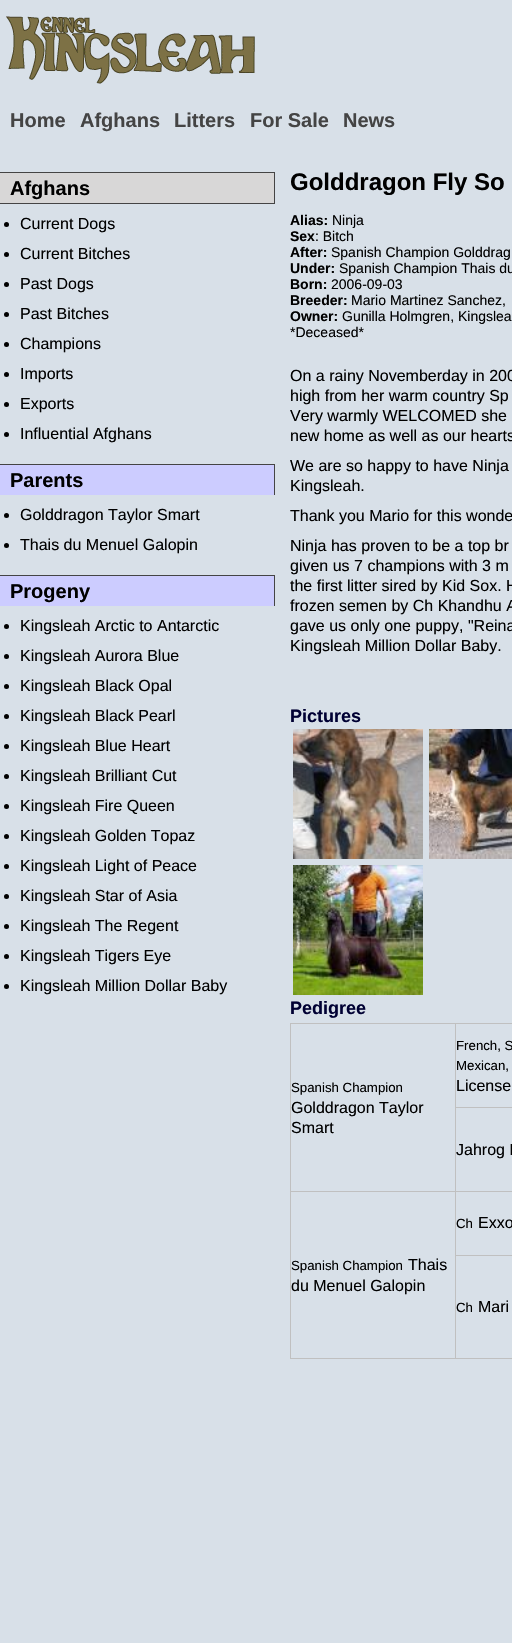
void draw(SkCanvas* canvas) {
	SkPaint paint;
	paint.setAntiAlias(true);
	canvas->clear(0xffd8e0e8);
	canvas->drawImageRect(SkImages::DeferredFromEncodedData(SkData::MakeFromFileName("img1.png")), SkRect::MakeXYWH(6, 16, 249, 68), SkSamplingOptions());
	SkFont f1(fontMgr->matchFamilyStyle("Liberation Sans", SkFontStyle::Bold()), 20);
	f1.setSubpixel(true);
	paint.setColor(0xff444444);
	canvas->drawString("Home", 10, 127, f1, paint);
	canvas->drawString("Afghans", 80, 127, f1, paint);
	canvas->drawString("Litters", 174, 127, f1, paint);
	canvas->drawString("For Sale", 250, 127, f1, paint);
	canvas->drawString("News", 343, 127, f1, paint);
	paint.setColor(0xffd8d7d7);
	canvas->drawRect(SkRect::MakeXYWH(0, 173, 274, 30), paint);
	paint.setColor(0xff444444);
	canvas->drawRect(SkRect::MakeXYWH(0, 172, 275, 1), paint);
	canvas->drawRect(SkRect::MakeXYWH(274, 172, 1, 32), paint);
	canvas->drawRect(SkRect::MakeXYWH(0, 203, 275, 1), paint);
	paint.setColor(0xff000000);
	canvas->drawString("Afghans", 10, 195, f1, paint);
	canvas->drawCircle(6.5, 224.5, 2.5, paint);
	SkFont f2(fontMgr->matchFamilyStyle("Liberation Sans", SkFontStyle::Normal()), 16);
	f2.setSubpixel(true);
	canvas->drawString("Current Dogs", 20, 229, f2, paint);
	canvas->drawCircle(6.5, 254.5, 2.5, paint);
	canvas->drawString("Current Bitches", 20, 259, f2, paint);
	canvas->drawCircle(6.5, 284.5, 2.5, paint);
	canvas->drawString("Past Dogs", 20, 289, f2, paint);
	canvas->drawCircle(6.5, 314.5, 2.5, paint);
	canvas->drawString("Past Bitches", 20, 319, f2, paint);
	canvas->drawCircle(6.5, 344.5, 2.5, paint);
	canvas->drawString("Champions", 20, 349, f2, paint);
	canvas->drawCircle(6.5, 374.5, 2.5, paint);
	canvas->drawString("Imports", 20, 379, f2, paint);
	canvas->drawCircle(6.5, 404.5, 2.5, paint);
	canvas->drawString("Exports", 20, 409, f2, paint);
	canvas->drawCircle(6.5, 434.5, 2.5, paint);
	canvas->drawString("Influential Afghans", 20, 439, f2, paint);
	paint.setColor(0xffccccff);
	canvas->drawRect(SkRect::MakeXYWH(0, 465, 274, 30), paint);
	paint.setColor(0xff444444);
	canvas->drawRect(SkRect::MakeXYWH(0, 464, 275, 1), paint);
	canvas->drawRect(SkRect::MakeXYWH(274, 464, 1, 31), paint);
	paint.setColor(0xff000000);
	canvas->drawString("Parents", 10, 487, f1, paint);
	canvas->drawCircle(6.5, 515.5, 2.5, paint);
	canvas->drawString("Golddragon Taylor Smart", 20, 520, f2, paint);
	canvas->drawCircle(6.5, 545.5, 2.5, paint);
	canvas->drawString("Thais du Menuel Galopin", 20, 550, f2, paint);
	paint.setColor(0xffccccff);
	canvas->drawRect(SkRect::MakeXYWH(0, 576, 274, 30), paint);
	paint.setColor(0xff444444);
	canvas->drawRect(SkRect::MakeXYWH(0, 575, 275, 1), paint);
	canvas->drawRect(SkRect::MakeXYWH(274, 575, 1, 31), paint);
	paint.setColor(0xff000000);
	canvas->drawString("Progeny", 10, 598, f1, paint);
	canvas->drawCircle(6.5, 626.5, 2.5, paint);
	canvas->drawString("Kingsleah Arctic to Antarctic", 20, 631, f2, paint);
	canvas->drawCircle(6.5, 656.5, 2.5, paint);
	canvas->drawString("Kingsleah Aurora Blue", 20, 661, f2, paint);
	canvas->drawCircle(6.5, 686.5, 2.5, paint);
	canvas->drawString("Kingsleah Black Opal", 20, 691, f2, paint);
	canvas->drawCircle(6.5, 716.5, 2.5, paint);
	canvas->drawString("Kingsleah Black Pearl", 20, 721, f2, paint);
	canvas->drawCircle(6.5, 746.5, 2.5, paint);
	canvas->drawString("Kingsleah Blue Heart", 20, 751, f2, paint);
	canvas->drawCircle(6.5, 776.5, 2.5, paint);
	canvas->drawString("Kingsleah Brilliant Cut", 20, 781, f2, paint);
	canvas->drawCircle(6.5, 806.5, 2.5, paint);
	canvas->drawString("Kingsleah Fire Queen", 20, 811, f2, paint);
	canvas->drawCircle(6.5, 836.5, 2.5, paint);
	canvas->drawString("Kingsleah Golden Topaz", 20, 841, f2, paint);
	canvas->drawCircle(6.5, 866.5, 2.5, paint);
	canvas->drawString("Kingsleah Light of Peace", 20, 871, f2, paint);
	canvas->drawCircle(6.5, 896.5, 2.5, paint);
	canvas->drawString("Kingsleah Star of Asia", 20, 901, f2, paint);
	canvas->drawCircle(6.5, 926.5, 2.5, paint);
	canvas->drawString("Kingsleah The Regent", 20, 931, f2, paint);
	canvas->drawCircle(6.5, 956.5, 2.5, paint);
	canvas->drawString("Kingsleah Tigers Eye", 20, 961, f2, paint);
	canvas->drawCircle(6.5, 986.5, 2.5, paint);
	canvas->drawString("Kingsleah Million Dollar Baby", 20, 991, f2, paint);
	SkFont f3(fontMgr->matchFamilyStyle("Liberation Sans", SkFontStyle::Bold()), 24);
	f3.setSubpixel(true);
	canvas->drawString("Golddragon Fly So", 290, 190, f3, paint);
	SkFont f4(fontMgr->matchFamilyStyle("Liberation Sans", SkFontStyle::Bold()), 14);
	f4.setSubpixel(true);
	canvas->drawString("Alias:", 290, 225, f4, paint);
	SkFont f5(fontMgr->matchFamilyStyle("Liberation Sans", SkFontStyle::Normal()), 14);
	f5.setSubpixel(true);
	canvas->drawString("Ninja", 332, 225, f5, paint);
	canvas->drawString("Sex", 290, 241, f4, paint);
	canvas->drawString(": Bitch", 315, 241, f5, paint);
	canvas->drawString("After:", 290, 257, f4, paint);
	canvas->drawString("Spanish Champion Golddrag", 331, 257, f5, paint);
	canvas->drawString("Under:", 290, 273, f4, paint);
	canvas->drawString("Spanish Champion Thais du", 339, 273, f5, paint);
	canvas->drawString("Born:", 290, 289, f4, paint);
	canvas->drawString("2006-09-03", 331, 289, f5, paint);
	canvas->drawString("Breeder:", 290, 305, f4, paint);
	canvas->drawString("Mario Martinez Sanchez,", 351, 305, f5, paint);
	canvas->drawString("Owner:", 290, 321, f4, paint);
	canvas->drawString("Gunilla Holmgren, Kingslea", 342, 321, f5, paint);
	canvas->drawString("*Deceased*", 290, 337, f5, paint);
	canvas->drawString("On a rainy Novemberday in 200", 290, 381, f2, paint);
	canvas->drawString("high from her warm country Sp", 290, 401, f2, paint);
	canvas->drawString("Very warmly WELCOMED she", 290, 421, f2, paint);
	canvas->drawString("new home as well as our hearts", 290, 441, f2, paint);
	canvas->drawString("We are so happy to have Ninja", 290, 471, f2, paint);
	canvas->drawString("Kingsleah.", 290, 491, f2, paint);
	canvas->drawString("Thank you Mario for this wonde", 290, 521, f2, paint);
	canvas->drawString("Ninja has proven to be a top br", 290, 551, f2, paint);
	canvas->drawString("given us 7 champions with 3 m", 290, 571, f2, paint);
	canvas->drawString("the first litter sired by Kid Sox. H", 290, 591, f2, paint);
	canvas->drawString("frozen semen by Ch Khandhu A", 290, 611, f2, paint);
	canvas->drawString("gave us only one puppy, \"Reina", 290, 631, f2, paint);
	canvas->drawString("Kingsleah Million Dollar Baby.", 290, 651, f2, paint);
	SkFont f6(fontMgr->matchFamilyStyle("Liberation Sans", SkFontStyle::Bold()), 18);
	f6.setSubpixel(true);
	paint.setColor(0xff000033);
	canvas->drawString("Pictures", 290, 722, f6, paint);
	canvas->drawImageRect(SkImages::DeferredFromEncodedData(SkData::MakeFromFileName("img2.png")), SkRect::MakeXYWH(293, 729, 130, 130), SkSamplingOptions());
	canvas->drawImageRect(SkImages::DeferredFromEncodedData(SkData::MakeFromFileName("img3.png")), SkRect::MakeXYWH(429, 729, 83, 130), SkSamplingOptions());
	canvas->drawImageRect(SkImages::DeferredFromEncodedData(SkData::MakeFromFileName("img4.png")), SkRect::MakeXYWH(293, 865, 130, 130), SkSamplingOptions());
	canvas->drawString("Pedigree", 290, 1014, f6, paint);
	paint.setColor(0xffc0c0c0);
	canvas->drawRect(SkRect::MakeXYWH(455, 1023, 57, 1), paint);
	canvas->drawRect(SkRect::MakeXYWH(455, 1107, 57, 1), paint);
	canvas->drawRect(SkRect::MakeXYWH(455, 1191, 57, 1), paint);
	canvas->drawRect(SkRect::MakeXYWH(455, 1255, 57, 1), paint);
	canvas->drawRect(SkRect::MakeXYWH(455, 1358, 57, 1), paint);
	canvas->drawRect(SkRect::MakeXYWH(455, 1255, 1, 104), paint);
	canvas->drawRect(SkRect::MakeXYWH(455, 1191, 1, 65), paint);
	canvas->drawRect(SkRect::MakeXYWH(290, 1191, 166, 1), paint);
	canvas->drawRect(SkRect::MakeXYWH(455, 1107, 1, 85), paint);
	canvas->drawRect(SkRect::MakeXYWH(455, 1023, 1, 85), paint);
	SkFont f7(fontMgr->matchFamilyStyle("Liberation Sans", SkFontStyle::Normal()), 13.25);
	f7.setSubpixel(true);
	paint.setColor(0xff000000);
	canvas->drawString("French, S", 456, 1050, f7, paint);
	canvas->drawString("Mexican,", 456, 1070, f7, paint);
	canvas->drawString("License", 456, 1091, f2, paint);
	paint.setColor(0xffc0c0c0);
	canvas->drawRect(SkRect::MakeXYWH(290, 1023, 166, 1), paint);
	canvas->drawRect(SkRect::MakeXYWH(290, 1358, 166, 1), paint);
	canvas->drawRect(SkRect::MakeXYWH(290, 1191, 1, 168), paint);
	canvas->drawRect(SkRect::MakeXYWH(290, 1023, 1, 169), paint);
	paint.setColor(0xff000000);
	canvas->drawString("Spanish Champion", 291, 1092, f7, paint);
	canvas->drawString("Golddragon Taylor", 291, 1113, f2, paint);
	canvas->drawString("Smart", 291, 1133, f2, paint);
	canvas->drawString("Jahrog I", 456, 1155, f2, paint);
	canvas->drawString("Ch", 456, 1228, f7, paint);
	canvas->drawString("Exxo", 478, 1228, f2, paint);
	canvas->drawString("Spanish Champion", 291, 1270, f7, paint);
	canvas->drawString("Thais", 408, 1270, f2, paint);
	canvas->drawString("du Menuel Galopin", 291, 1291, f2, paint);
	canvas->drawString("Ch", 456, 1312, f7, paint);
	canvas->drawString("Mari", 478, 1312, f2, paint);
}
